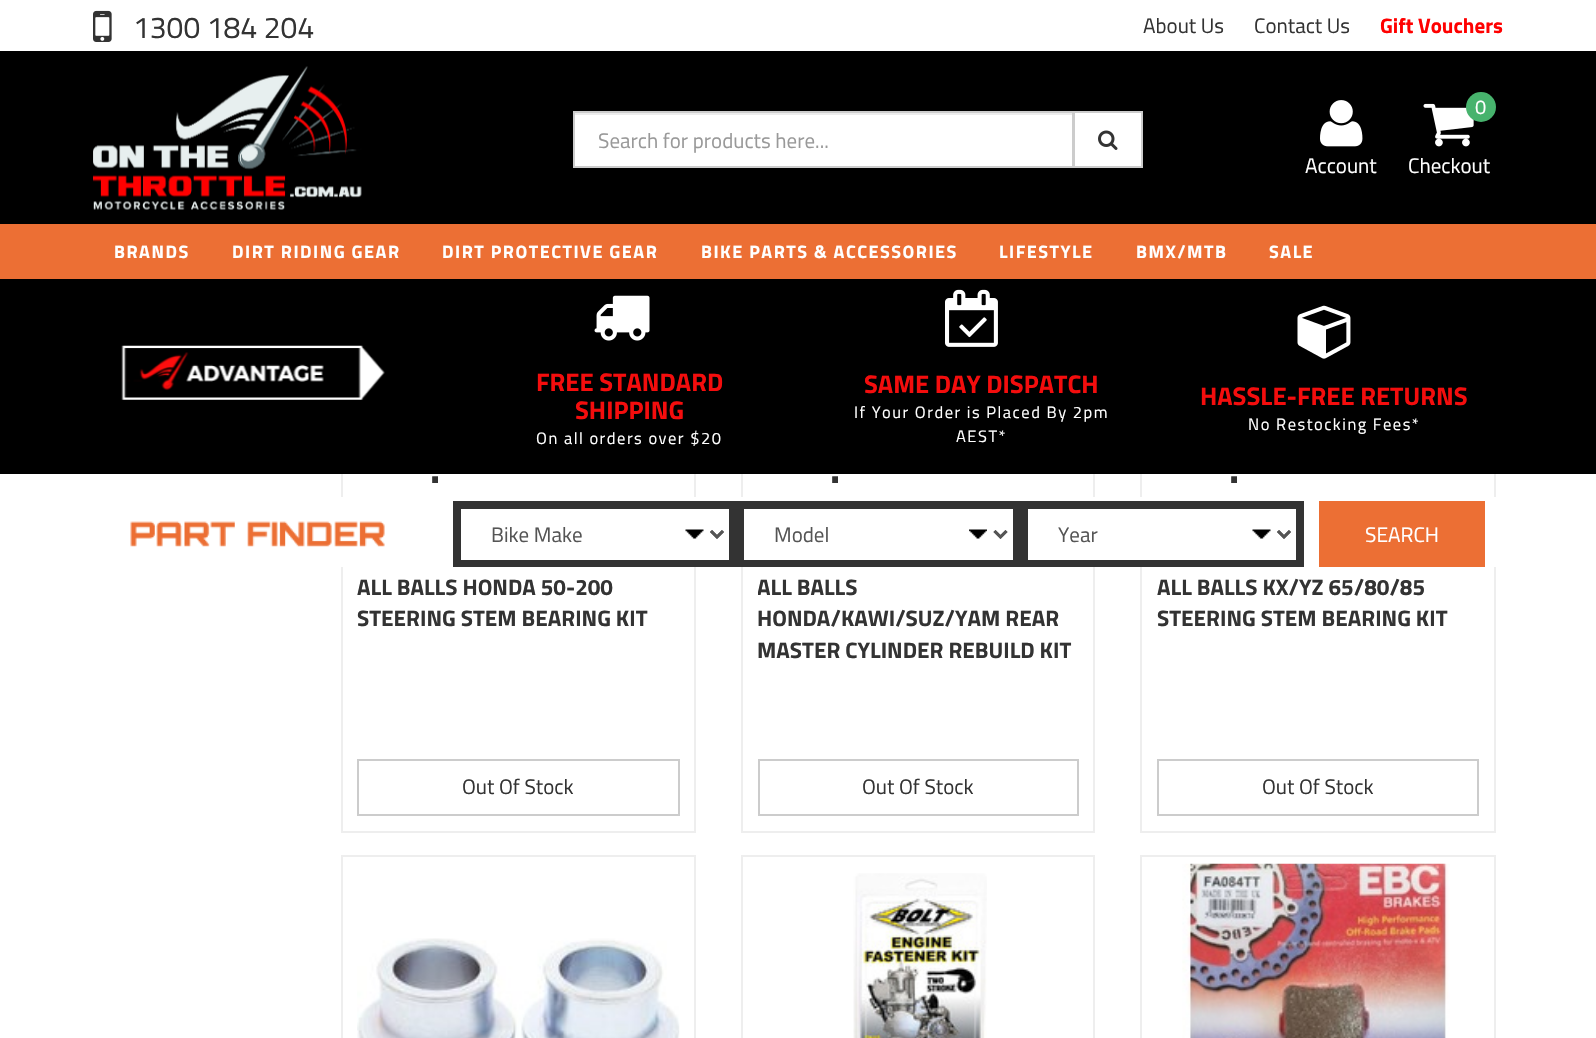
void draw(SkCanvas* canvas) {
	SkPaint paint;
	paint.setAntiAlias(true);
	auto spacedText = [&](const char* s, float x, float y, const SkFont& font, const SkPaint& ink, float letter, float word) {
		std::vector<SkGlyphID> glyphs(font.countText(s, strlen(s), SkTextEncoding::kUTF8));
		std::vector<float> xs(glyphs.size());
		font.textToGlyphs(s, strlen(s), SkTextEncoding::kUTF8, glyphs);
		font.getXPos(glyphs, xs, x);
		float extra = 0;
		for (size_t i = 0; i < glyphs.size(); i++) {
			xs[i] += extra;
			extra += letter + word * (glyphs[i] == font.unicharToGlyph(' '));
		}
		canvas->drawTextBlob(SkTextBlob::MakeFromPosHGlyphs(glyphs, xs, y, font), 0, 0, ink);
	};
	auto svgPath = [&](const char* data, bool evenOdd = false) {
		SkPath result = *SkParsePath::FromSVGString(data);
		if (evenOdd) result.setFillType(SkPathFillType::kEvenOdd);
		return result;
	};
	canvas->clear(0xffffffff);
	canvas->drawImageRect(SkImages::DeferredFromEncodedData(SkData::MakeFromFileName("img1.png")), SkRect::MakeXYWH(93, 10, 19, 32), SkSamplingOptions());
	SkFont f1(fontMgr->matchFamilyStyle("Titillium Web", SkFontStyle::Normal()), 30);
	f1.setSubpixel(true);
	paint.setColor(0xff333333);
	canvas->drawString("1300 184 204", 133, 38, f1, paint);
	SkFont f2(fontMgr->matchFamilyStyle("Titillium Web", SkFontStyle::Normal()), 21);
	f2.setSubpixel(true);
	canvas->drawString("About Us", 1143, 33, f2, paint);
	canvas->drawString("Contact Us", 1254, 33, f2, paint);
	SkFont f3(fontMgr->matchFamilyStyle("Titillium Web", SkFontStyle::Bold()), 21);
	f3.setSubpixel(true);
	paint.setColor(0xffff0000);
	canvas->drawString("Gift Vouchers", 1380, 33, f3, paint);
	paint.setStroke(true);
	paint.setStrokeWidth(2);
	paint.setColor(0xffeeeeee);
	canvas->drawRect(SkRect::MakeXYWH(342, 87, 353, 745), paint);
	canvas->drawRect(SkRect::MakeXYWH(742, 87, 352, 745), paint);
	canvas->drawRect(SkRect::MakeXYWH(1141, 87, 354, 745), paint);
	paint.setStroke(false);
	paint.setColor(0xff000000);
	canvas->drawRect(SkRect::MakeXYWH(0, 51, 1596, 173), paint);
	canvas->drawImageRect(SkImages::DeferredFromEncodedData(SkData::MakeFromFileName("img2.png")), SkRect::MakeXYWH(93, 66, 269, 144), SkSamplingOptions());
	paint.setColor(0xffffffff);
	canvas->drawRect(SkRect::MakeXYWH(575, 115, 497, 51), paint);
	paint.setColor(0xffececec);
	canvas->drawRect(SkRect::MakeXYWH(575, 113, 498, 2), paint);
	paint.setStroke(true);
	paint.setColor(0xffcccccc);
	canvas->drawRect(SkRect::MakeXYWH(574, 112, 499, 55), paint);
	paint.setStroke(false);
	paint.setColor(0xff999999);
	canvas->drawString("Search for products here...", 598, 148, f2, paint);
	paint.setColor(0xffffffff);
	canvas->drawRect(SkRect::MakeXYWH(1074, 112, 68, 55), paint);
	paint.setStroke(true);
	paint.setColor(0xffcccccc);
	canvas->drawRect(SkRect::MakeXYWH(1074, 112, 68, 55), paint);
	canvas->drawImageRect(SkImages::DeferredFromEncodedData(SkData::MakeFromFileName("img3.png")), SkRect::MakeXYWH(1098, 130, 20, 20), SkSamplingOptions());
	canvas->drawImageRect(SkImages::DeferredFromEncodedData(SkData::MakeFromFileName("img4.png")), SkRect::MakeXYWH(1320, 100, 43, 47), SkSamplingOptions());
	paint.setStroke(false);
	paint.setColor(0xffffffff);
	canvas->drawString("Account", 1305, 173, f2, paint);
	canvas->drawImageRect(SkImages::DeferredFromEncodedData(SkData::MakeFromFileName("img5.png")), SkRect::MakeXYWH(1423, 103, 51, 44), SkSamplingOptions());
	paint.setColor(0xff47b36d);
	canvas->drawCircle(1481, 107, 15, paint);
	SkFont f4(fontMgr->matchFamilyStyle("Titillium Web", SkFontStyle::Normal()), 20);
	f4.setSubpixel(true);
	paint.setColor(0xffffffff);
	canvas->drawString("0", 1475, 114, f4, paint);
	canvas->drawString("Checkout", 1408, 173, f2, paint);
	paint.setColor(0xffec6f34);
	canvas->drawRect(SkRect::MakeXYWH(0, 224, 1596, 55), paint);
	SkFont f5(fontMgr->matchFamilyStyle("Titillium Web", SkFontStyle::Bold()), 18);
	f5.setSubpixel(true);
	paint.setColor(0xffffffff);
	spacedText("BRANDS", 114, 258, f5, paint, 1.5, 0);
	spacedText("DIRT RIDING GEAR", 232, 258, f5, paint, 1.5, 0);
	spacedText("DIRT PROTECTIVE GEAR", 442, 258, f5, paint, 1.5, 0);
	spacedText("BIKE PARTS & ACCESSORIES", 701, 258, f5, paint, 1.5, 0);
	spacedText("LIFESTYLE", 999, 258, f5, paint, 1.5, 0);
	spacedText("BMX/MTB", 1136, 258, f5, paint, 1.5, 0);
	spacedText("SALE", 1269, 258, f5, paint, 1.5, 0);
	paint.setColor(0xff000000);
	canvas->drawRect(SkRect::MakeXYWH(0, 279, 1596, 195), paint);
	canvas->drawImageRect(SkImages::DeferredFromEncodedData(SkData::MakeFromFileName("img6.png")), SkRect::MakeXYWH(121, 345, 264, 55), SkSamplingOptions());
	canvas->drawImageRect(SkImages::DeferredFromEncodedData(SkData::MakeFromFileName("img7.png")), SkRect::MakeXYWH(594, 295, 56, 46), SkSamplingOptions());
	SkFont f6(fontMgr->matchFamilyStyle("Titillium Web", SkFontStyle::Bold()), 25.5);
	f6.setSubpixel(true);
	paint.setColor(0xfff40d0d);
	canvas->drawString("FREE STANDARD", 536, 391, f6, paint);
	canvas->drawString("SHIPPING", 575, 419, f6, paint);
	SkFont f7(fontMgr->matchFamilyStyle("Titillium Web", SkFontStyle::Normal()), 16.5);
	f7.setSubpixel(true);
	paint.setColor(0xffffffff);
	spacedText("On all orders over $20", 536, 444, f7, paint, 1.5, 0);
	canvas->drawImageRect(SkImages::DeferredFromEncodedData(SkData::MakeFromFileName("img8.png")), SkRect::MakeXYWH(945, 289, 53, 58), SkSamplingOptions());
	paint.setColor(0xfff40d0d);
	canvas->drawString("SAME DAY DISPATCH", 864, 393, f6, paint);
	paint.setColor(0xffffffff);
	spacedText("If Your Order is Placed By 2pm", 854, 418, f7, paint, 1.5, 0);
	spacedText("AEST*", 956, 442, f7, paint, 1.5, 0);
	canvas->drawImageRect(SkImages::DeferredFromEncodedData(SkData::MakeFromFileName("img9.png")), SkRect::MakeXYWH(1297, 305, 54, 54), SkSamplingOptions());
	paint.setColor(0xfff40d0d);
	canvas->drawString("HASSLE-FREE RETURNS", 1200, 405, f6, paint);
	paint.setColor(0xffffffff);
	spacedText("No Restocking Fees*", 1248, 430, f7, paint, 1.5, 0);
	canvas->drawRect(SkRect::MakeXYWH(341, 497, 1155, 70), paint);
	canvas->drawImageRect(SkImages::DeferredFromEncodedData(SkData::MakeFromFileName("img10.png")), SkRect::MakeXYWH(130, 521, 255, 26), SkSamplingOptions());
	paint.setStroke(true);
	paint.setStrokeWidth(8);
	paint.setColor(0xff333333);
	canvas->drawRect(SkRect::MakeXYWH(457, 505, 276, 58), paint);
	paint.setStroke(false);
	paint.setColor(0xffffffff);
	canvas->drawRect(SkRect::MakeXYWH(461, 559, 268, 1), paint);
	canvas->drawImageRect(SkImages::DeferredFromEncodedData(SkData::MakeFromFileName("img11.png")), SkRect::MakeXYWH(685, 529, 39, 10), SkSamplingOptions());
	paint.setStroke(true);
	paint.setStrokeWidth(3);
	paint.setColor(0xff555555);
	canvas->drawPath(svgPath("M711 531L717 537L723 531"), paint);
	paint.setStroke(false);
	canvas->drawString("Bike Make", 491, 542, f2, paint);
	paint.setStroke(true);
	paint.setStrokeWidth(8);
	paint.setColor(0xff333333);
	canvas->drawRect(SkRect::MakeXYWH(741, 505, 275, 58), paint);
	paint.setStroke(false);
	paint.setColor(0xffffffff);
	canvas->drawRect(SkRect::MakeXYWH(744, 509, 269, 51), paint);
	canvas->drawImageRect(SkImages::DeferredFromEncodedData(SkData::MakeFromFileName("img12.png")), SkRect::MakeXYWH(969, 529, 39, 10), SkSamplingOptions());
	paint.setStroke(true);
	paint.setStrokeWidth(3);
	paint.setColor(0xff555555);
	canvas->drawPath(svgPath("M994.5 531L1000.5 537L1006.5 531"), paint);
	paint.setStroke(false);
	canvas->drawString("Model", 774, 542, f2, paint);
	paint.setStroke(true);
	paint.setStrokeWidth(8);
	paint.setColor(0xff333333);
	canvas->drawRect(SkRect::MakeXYWH(1024, 505, 276, 58), paint);
	paint.setStroke(false);
	paint.setColor(0xffffffff);
	canvas->drawRect(SkRect::MakeXYWH(1028, 559, 268, 1), paint);
	canvas->drawImageRect(SkImages::DeferredFromEncodedData(SkData::MakeFromFileName("img11.png")), SkRect::MakeXYWH(1252, 529, 39, 10), SkSamplingOptions());
	paint.setStroke(true);
	paint.setStrokeWidth(3);
	paint.setColor(0xff555555);
	canvas->drawPath(svgPath("M1278 531L1284 537L1290 531"), paint);
	paint.setStroke(false);
	canvas->drawString("Year", 1058, 542, f2, paint);
	paint.setColor(0xffec6f34);
	canvas->drawRect(SkRect::MakeXYWH(1319, 501, 166, 66), paint);
	paint.setColor(0xffffffff);
	canvas->drawString("SEARCH", 1365, 542, f2, paint);
	SkFont f8(fontMgr->matchFamilyStyle("Titillium Web", SkFontStyle::Bold()), 40);
	f8.setSubpixel(true);
	paint.setColor(0xff333333);
	spacedText(".", 430, 483, f8, paint, 1.5, 0);
	SkFont f9(fontMgr->matchFamilyStyle("Titillium Web", SkFontStyle::Bold()), 22.5);
	f9.setSubpixel(true);
	canvas->drawString("ALL BALLS HONDA 50-200", 357, 595, f9, paint);
	canvas->drawString("STEERING STEM BEARING KIT", 357, 626, f9, paint);
	paint.setStroke(true);
	paint.setStrokeWidth(2);
	paint.setColor(0xffcccccc);
	canvas->drawRect(SkRect::MakeXYWH(358, 760, 321, 55), paint);
	paint.setStroke(false);
	paint.setColor(0xff333333);
	canvas->drawString("Out Of Stock", 462, 794, f2, paint);
	spacedText(".", 830, 483, f8, paint, 1.5, 0);
	canvas->save();
	canvas->clipRect(SkRect::MakeXYWH(758, 572, 321, 90));
	canvas->drawString("ALL BALLS", 757, 595, f9, paint);
	canvas->restore();
	canvas->drawString("HONDA/KAWI/SUZ/YAM REAR", 757, 626, f9, paint);
	canvas->drawString("MASTER CYLINDER REBUILD KIT", 757, 658, f9, paint);
	paint.setStroke(true);
	paint.setColor(0xffcccccc);
	canvas->drawRect(SkRect::MakeXYWH(759, 760, 319, 55), paint);
	paint.setStroke(false);
	paint.setColor(0xff333333);
	canvas->drawString("Out Of Stock", 862, 794, f2, paint);
	spacedText(".", 1229, 483, f8, paint, 1.5, 0);
	canvas->drawString("ALL BALLS KX/YZ 65/80/85", 1157, 595, f9, paint);
	canvas->drawString("STEERING STEM BEARING KIT", 1157, 626, f9, paint);
	paint.setStroke(true);
	paint.setColor(0xffcccccc);
	canvas->drawRect(SkRect::MakeXYWH(1158, 760, 320, 55), paint);
	paint.setStroke(false);
	paint.setColor(0xff333333);
	canvas->drawString("Out Of Stock", 1262, 794, f2, paint);
	paint.setStroke(true);
	paint.setColor(0xffeeeeee);
	canvas->drawRect(SkRect::MakeXYWH(342, 856, 353, 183), paint);
	canvas->drawImageRect(SkImages::DeferredFromEncodedData(SkData::MakeFromFileName("img13.png")), SkRect::MakeXYWH(357, 938, 323, 100), SkSamplingOptions());
	canvas->drawRect(SkRect::MakeXYWH(742, 856, 352, 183), paint);
	canvas->drawImageRect(SkImages::DeferredFromEncodedData(SkData::MakeFromFileName("img14.png")), SkRect::MakeXYWH(853, 873, 134, 165), SkSamplingOptions());
	canvas->drawRect(SkRect::MakeXYWH(1141, 856, 354, 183), paint);
	canvas->drawImageRect(SkImages::DeferredFromEncodedData(SkData::MakeFromFileName("img15.png")), SkRect::MakeXYWH(1182, 863, 268, 175), SkSamplingOptions());
}
